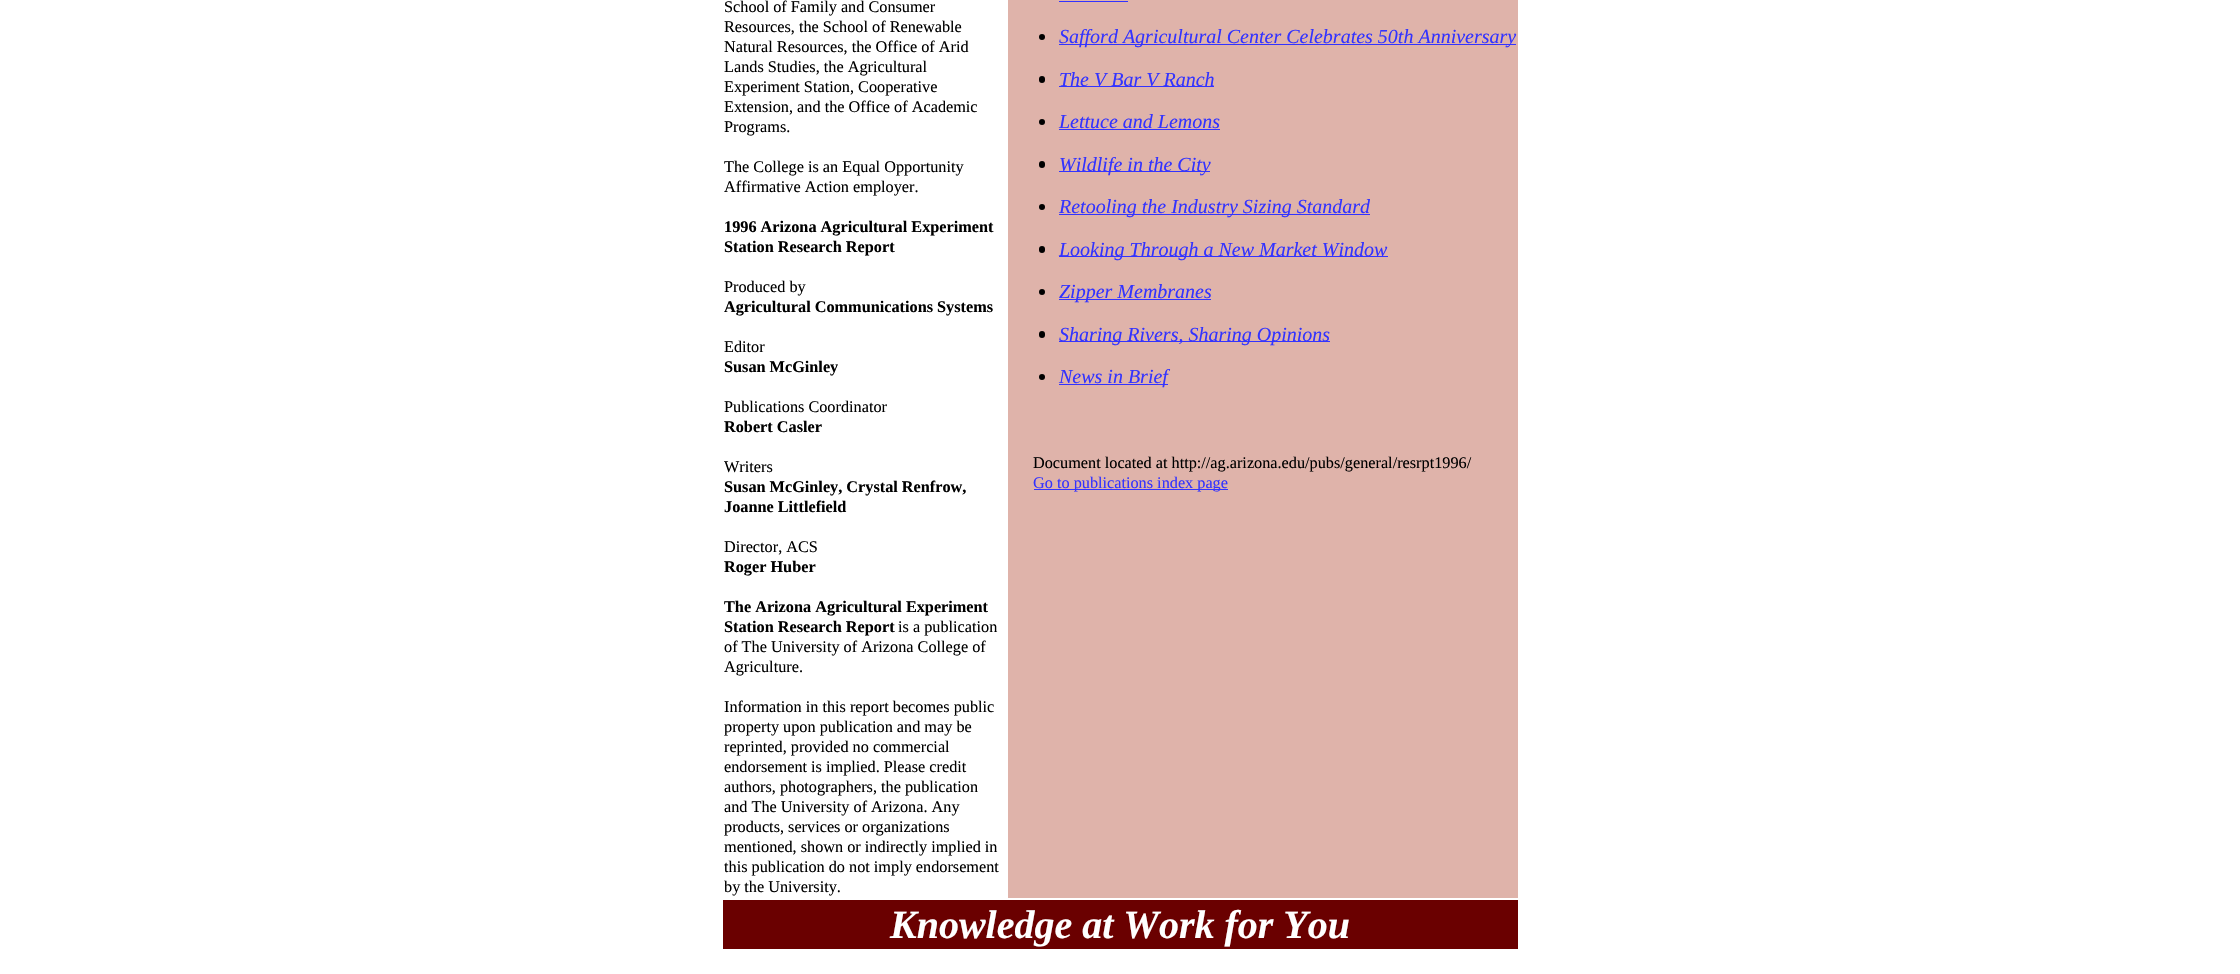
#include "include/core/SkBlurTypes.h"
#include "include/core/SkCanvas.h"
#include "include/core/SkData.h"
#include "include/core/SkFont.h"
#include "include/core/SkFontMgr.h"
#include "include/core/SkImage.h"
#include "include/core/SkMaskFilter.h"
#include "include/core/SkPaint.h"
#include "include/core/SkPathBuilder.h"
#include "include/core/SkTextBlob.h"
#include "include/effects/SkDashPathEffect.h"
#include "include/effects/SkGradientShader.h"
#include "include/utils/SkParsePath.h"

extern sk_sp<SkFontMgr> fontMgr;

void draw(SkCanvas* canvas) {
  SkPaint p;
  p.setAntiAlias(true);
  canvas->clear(SK_ColorWHITE);
  p.setColor(SkColorSetRGB(223, 179, 170));
  canvas->drawRect(SkRect::MakeLTRB(1008, 0, 1518, 898), p);
  p.setColor(SkColorSetRGB(51, 51, 255));
  canvas->drawRect(SkRect::MakeLTRB(1059, 1, 1128, 2), p);
  p.setColor(SK_ColorBLACK);
  canvas->drawCircle(1042, 37, 3, p);
  p.setColor(SkColorSetRGB(51, 51, 255));
  canvas->drawRect(SkRect::MakeLTRB(1059, 44, 1516, 45), p);
  p.setColor(SK_ColorBLACK);
  canvas->drawRoundRect(SkRect::MakeLTRB(1039, 76, 1045, 83), 3, 3, p);
  p.setColor(SkColorSetRGB(51, 51, 255));
  canvas->drawRect(SkRect::MakeLTRB(1059, 86, 1214, 87), p);
  p.setColor(SK_ColorBLACK);
  canvas->drawCircle(1042, 122, 3, p);
  p.setColor(SkColorSetRGB(51, 51, 255));
  canvas->drawRect(SkRect::MakeLTRB(1059, 129, 1220, 130), p);
  p.setColor(SK_ColorBLACK);
  canvas->drawRoundRect(SkRect::MakeLTRB(1039, 161, 1045, 168), 3, 3, p);
  p.setColor(SkColorSetRGB(51, 51, 255));
  canvas->drawRect(SkRect::MakeLTRB(1059, 171, 1210, 172), p);
  p.setColor(SK_ColorBLACK);
  canvas->drawCircle(1042, 207, 3, p);
  p.setColor(SkColorSetRGB(51, 51, 255));
  canvas->drawRect(SkRect::MakeLTRB(1059, 214, 1370, 215), p);
  p.setColor(SK_ColorBLACK);
  canvas->drawRoundRect(SkRect::MakeLTRB(1039, 246, 1045, 253), 3, 3, p);
  p.setColor(SkColorSetRGB(51, 51, 255));
  canvas->drawRect(SkRect::MakeLTRB(1059, 256, 1388, 257), p);
  p.setColor(SK_ColorBLACK);
  canvas->drawCircle(1042, 292, 3, p);
  p.setColor(SkColorSetRGB(51, 51, 255));
  canvas->drawRect(SkRect::MakeLTRB(1059, 299, 1211, 300), p);
  p.setColor(SK_ColorBLACK);
  canvas->drawRoundRect(SkRect::MakeLTRB(1039, 331, 1045, 338), 3, 3, p);
  p.setColor(SkColorSetRGB(51, 51, 255));
  canvas->drawRect(SkRect::MakeLTRB(1059, 341, 1330, 342), p);
  p.setColor(SK_ColorBLACK);
  canvas->drawCircle(1042, 377, 3, p);
  p.setColor(SkColorSetRGB(51, 51, 255));
  canvas->drawRect(SkRect::MakeLTRB(1059, 384, 1168, 385), p);
  canvas->drawRect(SkRect::MakeLTRB(1034, 489, 1228, 490), p);
  p.setColor(SkColorSetRGB(106, 0, 0));
  canvas->drawRect(SkRect::MakeLTRB(723, 900, 1518, 949), p);
  SkFont font1(fontMgr->matchFamilyStyle("Liberation Serif", SkFontStyle::Normal()), 16.25f);
  font1.setSubpixel(true);
  p.setColor(SK_ColorBLACK);
  canvas->drawString("School of Family and Consumer", 724, 12, font1, p);
  canvas->drawString("Resources, the School of Renewable", 724, 32, font1, p);
  canvas->drawString("Natural Resources, the Office of Arid", 724, 52, font1, p);
  canvas->drawString("Lands Studies, the Agricultural", 724, 72, font1, p);
  canvas->drawString("Experiment Station, Cooperative", 724, 92, font1, p);
  canvas->drawString("Extension, and the Office of Academic", 724, 112, font1, p);
  canvas->drawString("Programs.", 724, 132, font1, p);
  canvas->drawString("The College is an Equal Opportunity", 724, 172, font1, p);
  canvas->drawString("Affirmative Action employer.", 724, 192, font1, p);
  SkFont font2(fontMgr->matchFamilyStyle("Liberation Serif", SkFontStyle::Bold()), 16.25f);
  font2.setSubpixel(true);
  canvas->drawString("1996 Arizona Agricultural Experiment", 724, 232, font2, p);
  canvas->drawString("Station Research Report", 724, 252, font2, p);
  canvas->drawString("Produced by", 724, 292, font1, p);
  canvas->drawString("Agricultural Communications Systems", 724, 312, font2, p);
  canvas->drawString("Editor", 724, 352, font1, p);
  canvas->drawString("Susan McGinley", 724, 372, font2, p);
  canvas->drawString("Publications Coordinator", 724, 412, font1, p);
  canvas->drawString("Robert Casler", 724, 432, font2, p);
  canvas->drawString("Writers", 724, 472, font1, p);
  canvas->drawString("Susan McGinley, Crystal Renfrow,", 724, 492, font2, p);
  canvas->drawString("Joanne Littlefield", 724, 512, font2, p);
  canvas->drawString("Director, ACS", 724, 552, font1, p);
  canvas->drawString("Roger Huber", 724, 572, font2, p);
  canvas->drawString("The Arizona Agricultural Experiment", 724, 612, font2, p);
  canvas->drawString("Station Research Report", 724, 632, font2, p);
  canvas->drawString("is a publication", 898, 632, font1, p);
  canvas->drawString("of The University of Arizona College of", 724, 652, font1, p);
  canvas->drawString("Agriculture.", 724, 672, font1, p);
  canvas->drawString("Information in this report becomes public", 724, 712, font1, p);
  canvas->drawString("property upon publication and may be", 724, 732, font1, p);
  canvas->drawString("reprinted, provided no commercial", 724, 752, font1, p);
  canvas->drawString("endorsement is implied. Please credit", 724, 772, font1, p);
  canvas->drawString("authors, photographers, the publication", 724, 792, font1, p);
  canvas->drawString("and The University of Arizona. Any", 724, 812, font1, p);
  canvas->drawString("products, services or organizations", 724, 832, font1, p);
  canvas->drawString("mentioned, shown or indirectly implied in", 724, 852, font1, p);
  canvas->drawString("this publication do not imply endorsement", 724, 872, font1, p);
  canvas->drawString("by the University.", 724, 892, font1, p);
  SkFont font3(fontMgr->matchFamilyStyle("Liberation Serif", SkFontStyle::Italic()), 20);
  font3.setSubpixel(true);
  p.setColor(SkColorSetRGB(51, 51, 255));
  canvas->drawString("Safford Agricultural Center Celebrates 50th Anniversary", 1059, 43, font3, p);
  canvas->drawString("The V Bar V Ranch", 1059, 86, font3, p);
  canvas->drawString("Lettuce and Lemons", 1059, 128, font3, p);
  canvas->drawString("Wildlife in the City", 1059, 171, font3, p);
  canvas->drawString("Retooling the Industry Sizing Standard", 1059, 213, font3, p);
  canvas->drawString("Looking Through a New Market Window", 1059, 256, font3, p);
  canvas->drawString("Zipper Membranes", 1059, 298, font3, p);
  canvas->drawString("Sharing Rivers, Sharing Opinions", 1059, 341, font3, p);
  canvas->drawString("News in Brief", 1059, 383, font3, p);
  p.setColor(SK_ColorBLACK);
  canvas->drawString("Document located at http://ag.arizona.edu/pubs/general/resrpt1996/", 1033, 468, font1, p);
  p.setColor(SkColorSetRGB(51, 51, 255));
  canvas->drawString("Go to publications index page", 1033, 488, font1, p);
  SkFont font4(fontMgr->matchFamilyStyle("Liberation Serif", SkFontStyle::BoldItalic()), 40);
  font4.setSubpixel(true);
  p.setColor(SK_ColorWHITE);
  canvas->drawString("Knowledge at Work for You", 890, 938, font4, p);
}
